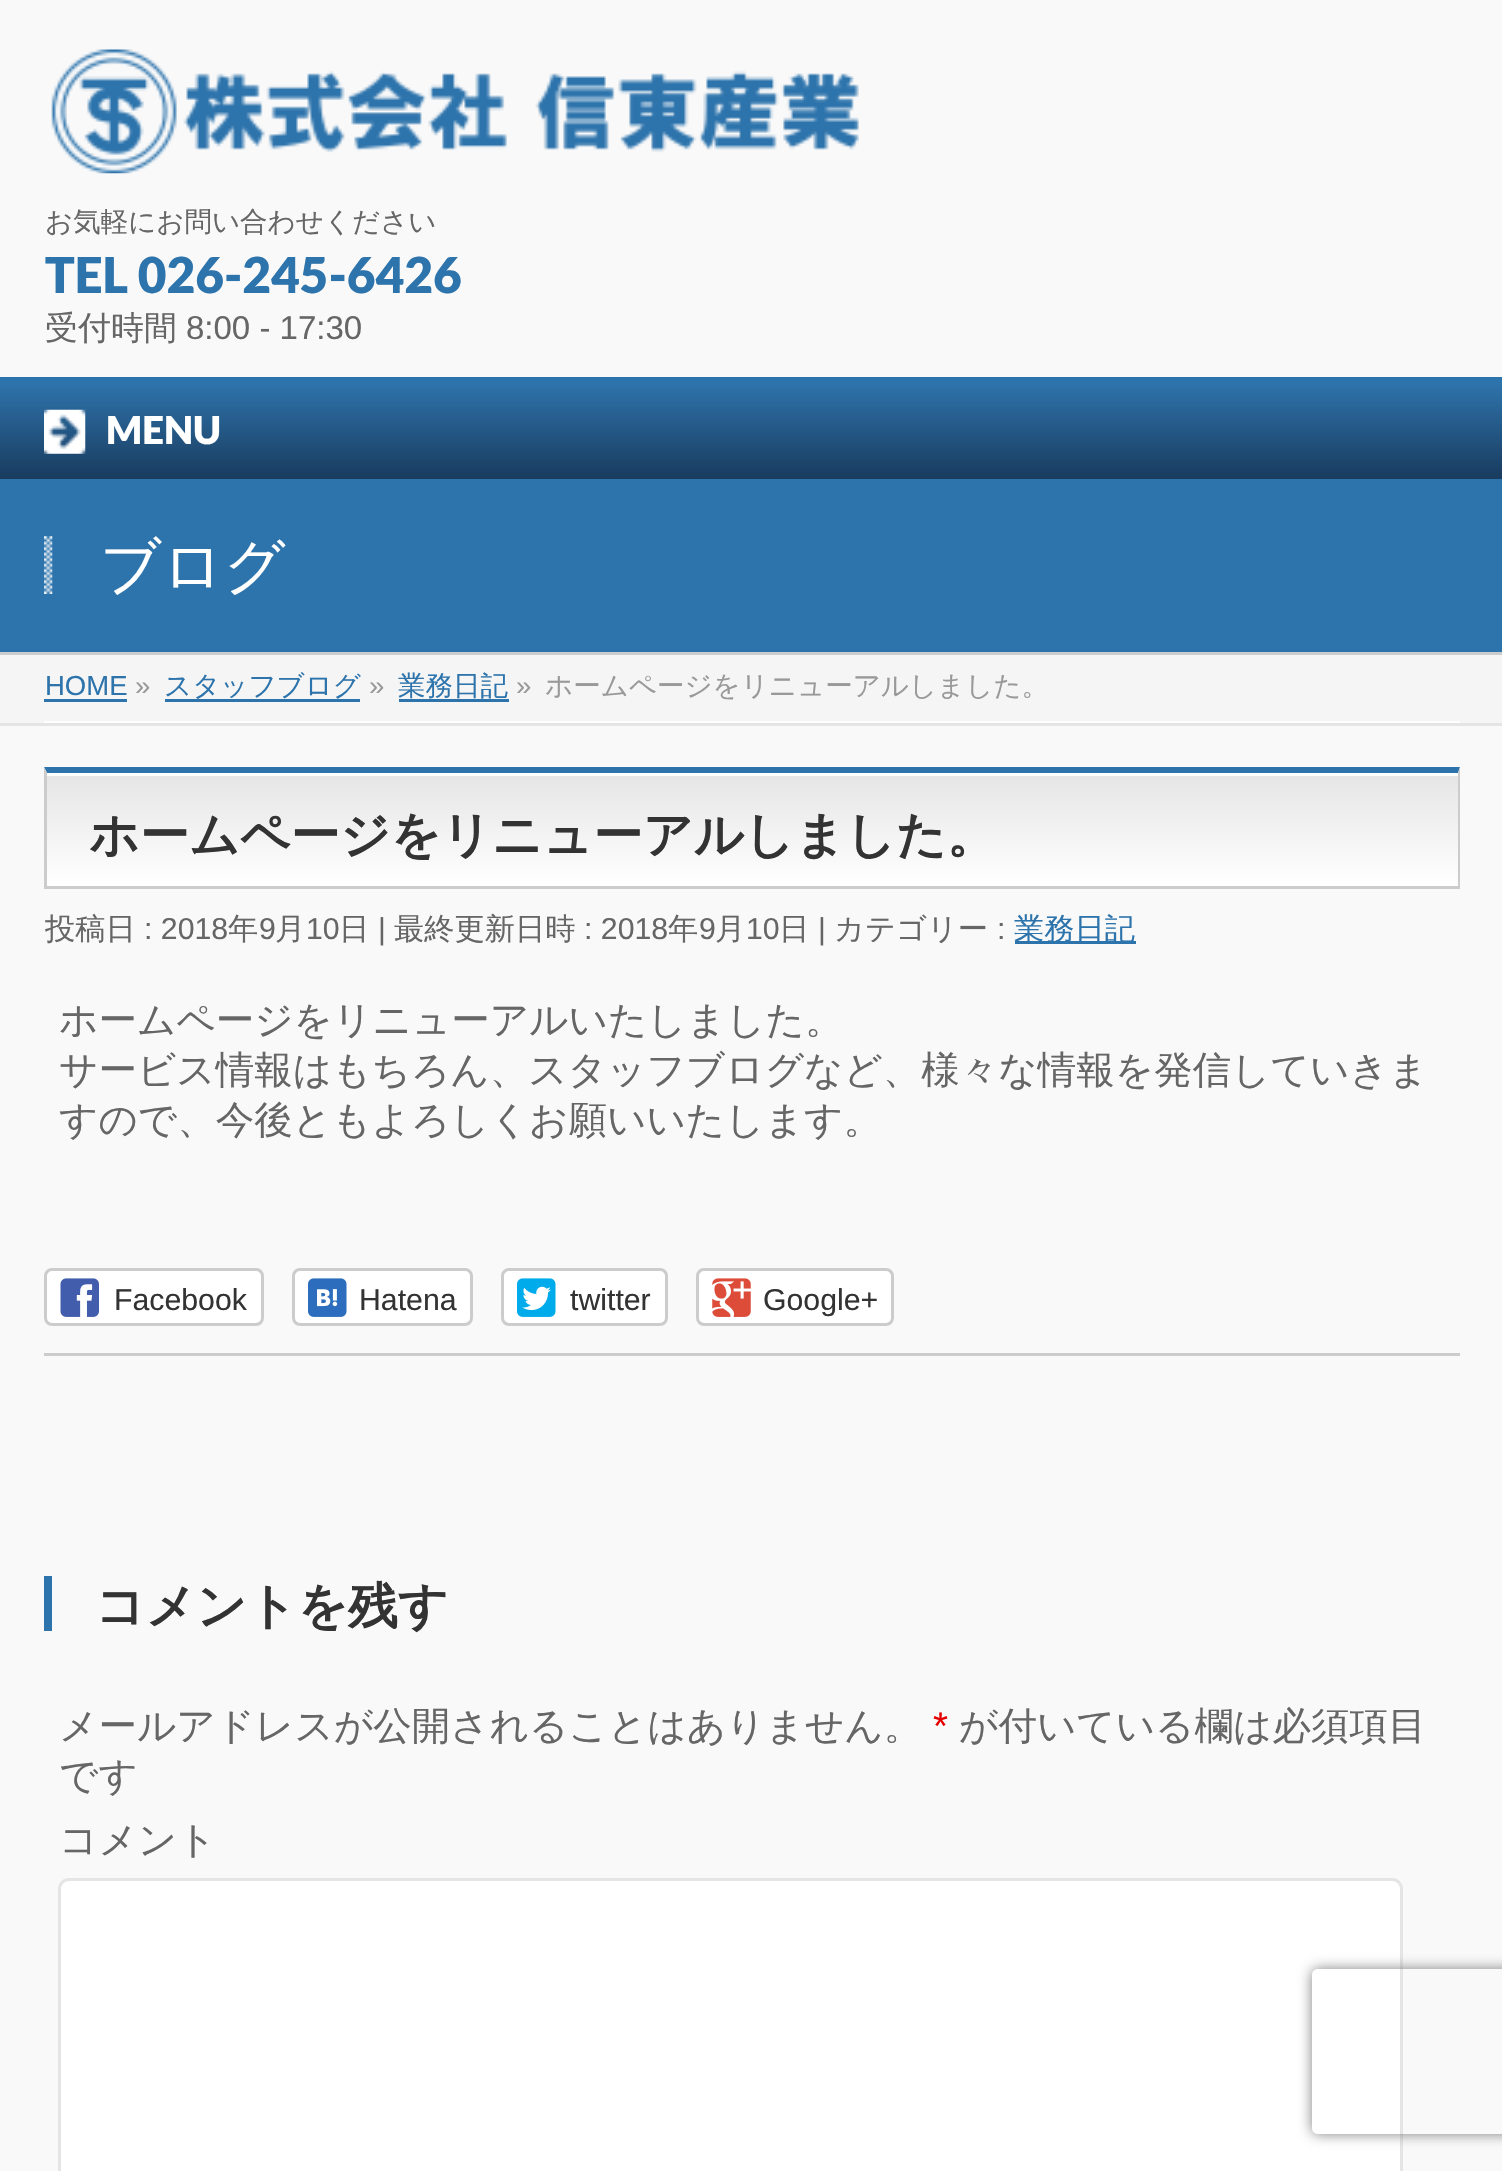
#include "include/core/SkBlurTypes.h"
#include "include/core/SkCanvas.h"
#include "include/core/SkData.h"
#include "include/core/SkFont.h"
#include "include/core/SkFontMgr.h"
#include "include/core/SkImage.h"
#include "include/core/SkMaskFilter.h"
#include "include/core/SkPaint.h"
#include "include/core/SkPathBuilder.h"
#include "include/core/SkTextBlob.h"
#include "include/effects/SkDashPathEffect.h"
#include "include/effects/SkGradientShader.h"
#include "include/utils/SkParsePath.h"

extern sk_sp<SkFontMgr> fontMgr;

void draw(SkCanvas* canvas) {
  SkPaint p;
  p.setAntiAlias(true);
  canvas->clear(SkColorSetRGB(249, 249, 249));
  canvas->drawImageRect(SkImages::DeferredFromEncodedData(SkData::MakeFromFileName("images/1.png")), SkRect::MakeLTRB(51, 49, 859, 174), SkSamplingOptions());
  p.setColor(SkColorSetRGB(46, 116, 172));
  canvas->drawRect(SkRect::MakeLTRB(0, 377, 1502, 382), p);
  {
    const SkColor colors[] = {SkColorSetRGB(46, 116, 172), SkColorSetRGB(25, 59, 94)};
    const float stops[] = {0, 1};
    const SkPoint ends[] = {{751, 382}, {751, 479}};
    p.setShader(SkGradientShader::MakeLinear(ends, colors, stops, 2, SkTileMode::kClamp));
    p.setAlpha(255);
  }
  canvas->drawRect(SkRect::MakeLTRB(0, 382, 1502, 479), p);
  canvas->drawImageRect(SkImages::DeferredFromEncodedData(SkData::MakeFromFileName("images/2.png")), SkRect::MakeLTRB(44, 409, 86, 454), SkSamplingOptions());
  p.setShader(nullptr);
  p.setColor(SkColorSetRGB(46, 116, 172));
  canvas->drawRect(SkRect::MakeLTRB(0, 479, 1502, 652), p);
  p.setColor(SkColorSetRGB(204, 204, 204));
  canvas->drawRect(SkRect::MakeLTRB(0, 652, 1502, 655), p);
  canvas->drawImageRect(SkImages::DeferredFromEncodedData(SkData::MakeFromFileName("images/3.png")), SkRect::MakeLTRB(44, 536, 53, 594), SkSamplingOptions());
  p.setColor(SkColorSetRGB(245, 245, 245));
  canvas->drawRect(SkRect::MakeLTRB(0, 655, 1502, 723), p);
  p.setColor(SkColorSetRGB(229, 229, 229));
  canvas->drawRect(SkRect::MakeLTRB(0, 723, 1502, 726), p);
  p.setColor(SK_ColorWHITE);
  canvas->drawRect(SkRect::MakeLTRB(44, 721, 1460, 723), p);
  p.setColor(SkColorSetRGB(46, 116, 172));
  canvas->drawRect(SkRect::MakeLTRB(44, 699, 127, 702), p);
  canvas->drawRect(SkRect::MakeLTRB(165, 699, 360, 702), p);
  canvas->drawRect(SkRect::MakeLTRB(399, 699, 509, 702), p);
  {
    const SkColor colors[] = {SkColorSetRGB(229, 229, 229), SK_ColorWHITE};
    const float stops[] = {0, 1};
    const SkPoint ends[] = {{47, 773}, {47, 886}};
    p.setShader(SkGradientShader::MakeLinear(ends, colors, stops, 2, SkTileMode::kClamp));
    p.setAlpha(255);
  }
  canvas->drawRect(SkRect::MakeLTRB(47, 776, 1458, 886), p);
  p.setShader(nullptr);
  p.setColor(SK_ColorWHITE);
  canvas->drawRect(SkRect::MakeLTRB(47, 773, 1458, 776), p);
  p.setColor(SkColorSetRGB(46, 116, 172));
  canvas->drawPath(SkPathBuilder().moveTo(44, 767).lineTo(1460, 767).lineTo(1458, 773).lineTo(47, 773).close().detach(), p);
  p.setColor(SkColorSetRGB(204, 204, 204));
  canvas->drawPath(SkPathBuilder().moveTo(1460, 767).lineTo(1460, 888).lineTo(1458, 886).lineTo(1458, 773).close().detach(), p);
  canvas->drawRect(SkRect::MakeLTRB(44, 886, 1460, 889), p);
  canvas->drawPath(SkPathBuilder().moveTo(44, 888).lineTo(44, 767).lineTo(47, 773).lineTo(47, 886).close().detach(), p);
  p.setColor(SkColorSetRGB(46, 116, 172));
  canvas->drawRect(SkRect::MakeLTRB(1015, 941, 1136, 944), p);
  p.setColor(SK_ColorWHITE);
  canvas->drawRoundRect(SkRect::MakeLTRB(45.5f, 1269.5f, 262.5f, 1324.5f), 6.5f, 6.5f, p);
  p.setStyle(SkPaint::kStroke_Style);
  p.setStrokeWidth(3);
  p.setColor(SkColorSetRGB(204, 204, 204));
  canvas->drawRoundRect(SkRect::MakeLTRB(45.5f, 1269.5f, 262.5f, 1324.5f), 6.5f, 6.5f, p);
  canvas->drawImageRect(SkImages::DeferredFromEncodedData(SkData::MakeFromFileName("images/4.png")), SkRect::MakeLTRB(60, 1278, 99, 1317), SkSamplingOptions());
  p.setStyle(SkPaint::kFill_Style);
  p.setColor(SK_ColorWHITE);
  canvas->drawRoundRect(SkRect::MakeLTRB(293.5f, 1269.5f, 471.5f, 1324.5f), 6.5f, 6.5f, p);
  p.setStyle(SkPaint::kStroke_Style);
  p.setColor(SkColorSetRGB(204, 204, 204));
  canvas->drawRoundRect(SkRect::MakeLTRB(293.5f, 1269.5f, 471.5f, 1324.5f), 6.5f, 6.5f, p);
  canvas->drawImageRect(SkImages::DeferredFromEncodedData(SkData::MakeFromFileName("images/5.png")), SkRect::MakeLTRB(308, 1278, 347, 1317), SkSamplingOptions());
  p.setStyle(SkPaint::kFill_Style);
  p.setColor(SK_ColorWHITE);
  canvas->drawRoundRect(SkRect::MakeLTRB(502.5f, 1269.5f, 666.5f, 1324.5f), 6.5f, 6.5f, p);
  p.setStyle(SkPaint::kStroke_Style);
  p.setColor(SkColorSetRGB(204, 204, 204));
  canvas->drawRoundRect(SkRect::MakeLTRB(502.5f, 1269.5f, 666.5f, 1324.5f), 6.5f, 6.5f, p);
  canvas->drawImageRect(SkImages::DeferredFromEncodedData(SkData::MakeFromFileName("images/6.png")), SkRect::MakeLTRB(517, 1278, 556, 1317), SkSamplingOptions());
  p.setStyle(SkPaint::kFill_Style);
  p.setColor(SK_ColorWHITE);
  canvas->drawRoundRect(SkRect::MakeLTRB(697.5f, 1269.5f, 892.5f, 1324.5f), 6.5f, 6.5f, p);
  p.setStyle(SkPaint::kStroke_Style);
  p.setColor(SkColorSetRGB(204, 204, 204));
  canvas->drawRoundRect(SkRect::MakeLTRB(697.5f, 1269.5f, 892.5f, 1324.5f), 6.5f, 6.5f, p);
  canvas->drawImageRect(SkImages::DeferredFromEncodedData(SkData::MakeFromFileName("images/7.png")), SkRect::MakeLTRB(712, 1278, 751, 1317), SkSamplingOptions());
  p.setStyle(SkPaint::kFill_Style);
  canvas->drawRect(SkRect::MakeLTRB(44, 1353, 1460, 1356), p);
  p.setColor(SkColorSetRGB(46, 116, 172));
  canvas->drawRect(SkRect::MakeLTRB(44, 1576, 52, 1631), p);
  p.setColor(SK_ColorWHITE);
  canvas->drawRoundRect(SkRect::MakeLTRB(59.5f, 1879.5f, 1401.5f, 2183.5f), 9.5f, 9.5f, p);
  p.setStyle(SkPaint::kStroke_Style);
  p.setColor(SkColorSetRGB(229, 229, 229));
  canvas->drawRoundRect(SkRect::MakeLTRB(59.5f, 1879.5f, 1401.5f, 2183.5f), 9.5f, 9.5f, p);
  canvas->save();
  canvas->clipPath(SkPathBuilder(SkPathFillType::kEvenOdd).moveTo(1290, 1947).lineTo(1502, 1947).lineTo(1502, 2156).lineTo(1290, 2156).close().moveTo(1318, 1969).lineTo(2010, 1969).cubicTo(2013.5f, 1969, 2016, 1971.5f, 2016, 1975).lineTo(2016, 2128).cubicTo(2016, 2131.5f, 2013.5f, 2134, 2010, 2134).lineTo(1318, 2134).cubicTo(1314.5f, 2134, 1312, 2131.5f, 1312, 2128).lineTo(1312, 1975).cubicTo(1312, 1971.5f, 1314.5f, 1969, 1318, 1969).close().detach(), true);
  p.setStyle(SkPaint::kFill_Style);
  p.setColor(SkColorSetRGB(128, 128, 128));
  p.setMaskFilter(SkMaskFilter::MakeBlur(kNormal_SkBlurStyle, 7));
  canvas->drawRoundRect(SkRect::MakeLTRB(1312, 1969, 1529, 2134), 6, 6, p);
  p.setMaskFilter(nullptr);
  canvas->restore();
  SkFont font1(fontMgr->matchFamilyStyle("WenQuanYi Zen Hei", SkFontStyle(500, SkFontStyle::kNormal_Width, SkFontStyle::kUpright_Slant)), 27.5f);
  font1.setSubpixel(true);
  p.setColor(SkColorSetRGB(102, 102, 102));
  canvas->drawString("お気軽にお問い合わせください", 45, 231, font1, p);
  SkFont font2(fontMgr->matchFamilyStyle("Lato", SkFontStyle(900, SkFontStyle::kNormal_Width, SkFontStyle::kUpright_Slant)), 49.5f);
  font2.setSubpixel(true);
  p.setColor(SkColorSetRGB(46, 116, 172));
  canvas->drawString("TEL 026-245-6426", 45, 293, font2, p);
  SkFont font3(fontMgr->matchFamilyStyle("WenQuanYi Zen Hei", SkFontStyle(500, SkFontStyle::kNormal_Width, SkFontStyle::kUpright_Slant)), 33);
  font3.setSubpixel(true);
  p.setColor(SkColorSetRGB(102, 102, 102));
  canvas->drawString("受付時間", 45, 339, font3, p);
  SkFont font4(fontMgr->matchFamilyStyle("Liberation Sans", SkFontStyle::Normal()), 33);
  font4.setSubpixel(true);
  canvas->drawString("8:00 - 17:30", 186, 339, font4, p);
  SkFont font5(fontMgr->matchFamilyStyle("Lato", SkFontStyle(900, SkFontStyle::kNormal_Width, SkFontStyle::kUpright_Slant)), 38.5f);
  font5.setSubpixel(true);
  p.setColor(SK_ColorWHITE);
  canvas->drawString("MENU", 106, 444, font5, p);
  SkFont font6(fontMgr->matchFamilyStyle("WenQuanYi Zen Hei", SkFontStyle(500, SkFontStyle::kNormal_Width, SkFontStyle::kUpright_Slant)), 60.5f);
  font6.setSubpixel(true);
  canvas->drawString("ブログ", 100, 587, font6, p);
  SkFont font7(fontMgr->matchFamilyStyle("Liberation Sans", SkFontStyle::Normal()), 27.5f);
  font7.setSubpixel(true);
  p.setColor(SkColorSetRGB(46, 116, 172));
  canvas->drawString("HOME", 45, 695, font7, p);
  p.setColor(SkColorSetRGB(153, 153, 153));
  canvas->drawString("»", 135, 695, font7, p);
  p.setColor(SkColorSetRGB(46, 116, 172));
  canvas->drawString("スタッフブログ", 164, 695, font1, p);
  p.setColor(SkColorSetRGB(153, 153, 153));
  canvas->drawString("»", 369, 695, font7, p);
  p.setColor(SkColorSetRGB(46, 116, 172));
  canvas->drawString("業務日記", 398, 695, font1, p);
  p.setColor(SkColorSetRGB(153, 153, 153));
  canvas->drawString("»", 516, 695, font7, p);
  canvas->drawString("ホームページをリニューアルしました。", 545, 695, font1, p);
  SkFont font8(fontMgr->matchFamilyStyle("WenQuanYi Zen Hei", SkFontStyle::Bold()), 49.5f);
  font8.setSubpixel(true);
  p.setColor(SkColorSetRGB(51, 51, 51));
  canvas->drawString("ホームページをリニューアルしました。", 89, 852, font8, p);
  SkFont font9(fontMgr->matchFamilyStyle("WenQuanYi Zen Hei", SkFontStyle(500, SkFontStyle::kNormal_Width, SkFontStyle::kUpright_Slant)), 30.25f);
  font9.setSubpixel(true);
  p.setColor(SkColorSetRGB(102, 102, 102));
  canvas->drawString("投稿日", 45, 939, font9, p);
  SkFont font10(fontMgr->matchFamilyStyle("Liberation Sans", SkFontStyle::Normal()), 30.25f);
  font10.setSubpixel(true);
  canvas->drawString(": 2018", 144, 939, font10, p);
  canvas->drawString("年", 228, 939, font9, p);
  canvas->drawString("9", 259, 939, font10, p);
  canvas->drawString("月", 275, 939, font9, p);
  canvas->drawString("10", 306, 939, font10, p);
  canvas->drawString("日", 339, 939, font9, p);
  canvas->drawString("|", 378, 939, font10, p);
  canvas->drawString("最終更新日時", 394, 939, font9, p);
  canvas->drawString(": 2018", 584, 939, font10, p);
  canvas->drawString("年", 668, 939, font9, p);
  canvas->drawString("9", 699, 939, font10, p);
  canvas->drawString("月", 715, 939, font9, p);
  canvas->drawString("10", 746, 939, font10, p);
  canvas->drawString("日", 779, 939, font9, p);
  canvas->drawString("|", 818, 939, font10, p);
  canvas->drawString("カテゴリー", 834, 939, font9, p);
  canvas->drawString(":", 997, 939, font10, p);
  p.setColor(SkColorSetRGB(46, 116, 172));
  canvas->drawString("業務日記", 1014, 939, font9, p);
  SkFont font11(fontMgr->matchFamilyStyle("WenQuanYi Zen Hei", SkFontStyle(500, SkFontStyle::kNormal_Width, SkFontStyle::kUpright_Slant)), 38.5f);
  font11.setSubpixel(true);
  p.setColor(SkColorSetRGB(102, 102, 102));
  canvas->drawString("ホームページをリニューアルいたしました。", 59, 1033, font11, p);
  canvas->drawString("サービス情報はもちろん、スタッフブログなど、様々な情報を発信していきま", 59, 1083, font11, p);
  canvas->drawString("すので、今後ともよろしくお願いいたします。", 59, 1133, font11, p);
  p.setColor(SkColorSetRGB(51, 51, 51));
  canvas->drawString("Facebook", 114, 1310, font10, p);
  canvas->drawString("Hatena", 359, 1310, font10, p);
  canvas->drawString("twitter", 570, 1310, font10, p);
  canvas->drawString("Google+", 763, 1310, font10, p);
  canvas->drawString("コメントを残す", 95, 1623, font8, p);
  p.setColor(SkColorSetRGB(102, 102, 102));
  canvas->drawString("メールアドレスが公開されることはありません。", 59, 1739, font11, p);
  SkFont font12(fontMgr->matchFamilyStyle("Liberation Sans", SkFontStyle::Normal()), 38.5f);
  font12.setSubpixel(true);
  p.setColor(SkColorSetRGB(229, 0, 0));
  canvas->drawString("*", 933, 1739, font12, p);
  p.setColor(SkColorSetRGB(102, 102, 102));
  canvas->drawString("が付いている欄は必須項目", 959, 1739, font11, p);
  canvas->drawString("です", 59, 1789, font11, p);
  canvas->drawString("コメント", 59, 1853, font11, p);
}
